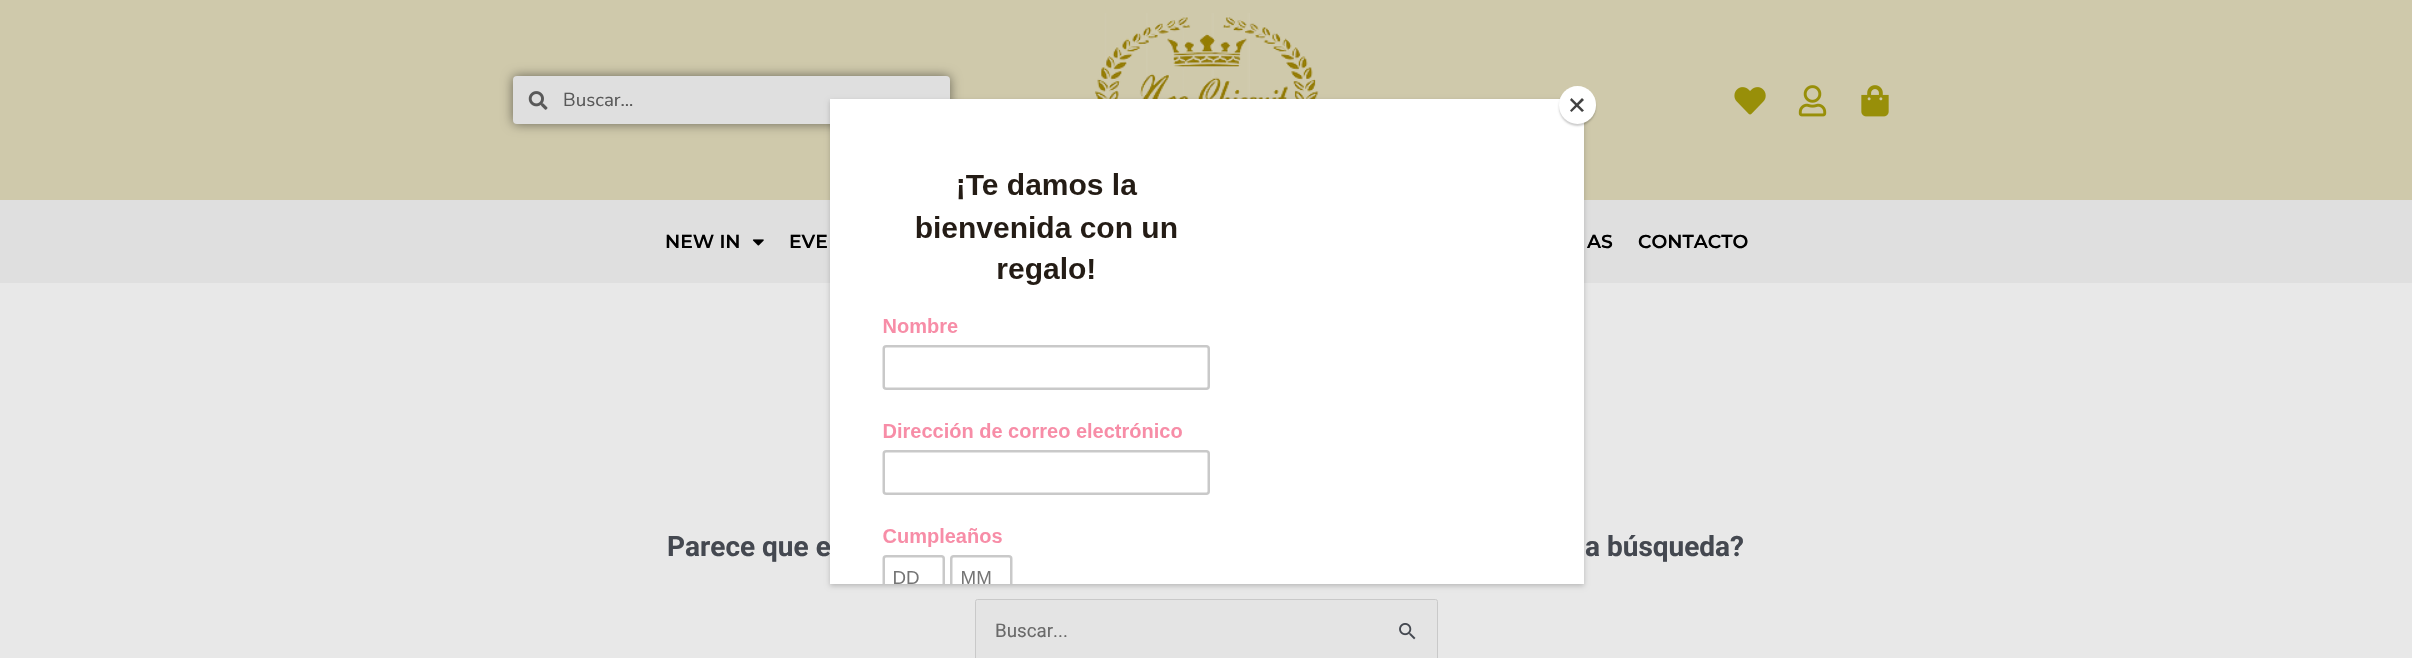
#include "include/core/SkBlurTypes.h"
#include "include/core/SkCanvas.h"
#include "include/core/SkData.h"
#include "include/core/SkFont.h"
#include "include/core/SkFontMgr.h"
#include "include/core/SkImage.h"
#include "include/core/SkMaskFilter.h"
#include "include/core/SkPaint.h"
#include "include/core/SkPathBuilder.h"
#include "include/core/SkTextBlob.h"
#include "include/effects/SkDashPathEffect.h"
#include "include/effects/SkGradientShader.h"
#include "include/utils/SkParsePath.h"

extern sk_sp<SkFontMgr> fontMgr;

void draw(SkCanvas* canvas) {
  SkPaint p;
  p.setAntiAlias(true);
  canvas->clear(SkColorSetRGB(232, 232, 232));
  p.setColor(SkColorSetRGB(207, 201, 171));
  canvas->drawRect(SkRect::MakeLTRB(0, 0, 2412, 200), p);
  p.setColor(SkColorSetARGB(128, 0, 0, 0));
  p.setMaskFilter(SkMaskFilter::MakeBlur(kNormal_SkBlurStyle, 6));
  canvas->drawRoundRect(SkRect::MakeLTRB(513, 76, 950, 124), 4, 4, p);
  p.setMaskFilter(nullptr);
  p.setColor(SkColorSetRGB(223, 223, 223));
  canvas->drawRoundRect(SkRect::MakeLTRB(513, 76, 950, 124), 4, 4, p);
  canvas->drawImageRect(SkImages::DeferredFromEncodedData(SkData::MakeFromFileName("images/3.png")), SkRect::MakeLTRB(1094, 13, 1319, 99), SkSamplingOptions());
  canvas->drawRect(SkRect::MakeLTRB(0, 200, 2412, 283), p);
  p.setColor(SkColorSetARGB(51, 0, 0, 0));
  p.setMaskFilter(SkMaskFilter::MakeBlur(kNormal_SkBlurStyle, 2.5f));
  canvas->drawRect(SkRect::MakeLTRB(830, 101, 1584, 586), p);
  p.setMaskFilter(nullptr);
  canvas->drawImageRect(SkImages::DeferredFromEncodedData(SkData::MakeFromFileName("images/2.png")), SkRect::MakeLTRB(528, 91, 548, 110), SkSamplingOptions());
  canvas->drawImageRect(SkImages::DeferredFromEncodedData(SkData::MakeFromFileName("images/4.png")), SkRect::MakeLTRB(1734, 87, 1766, 115), SkSamplingOptions());
  canvas->drawImageRect(SkImages::DeferredFromEncodedData(SkData::MakeFromFileName("images/5.png")), SkRect::MakeLTRB(1798, 85, 1827, 117), SkSamplingOptions());
  canvas->drawImageRect(SkImages::DeferredFromEncodedData(SkData::MakeFromFileName("images/6.png")), SkRect::MakeLTRB(1861, 85, 1889, 117), SkSamplingOptions());
  canvas->drawImageRect(SkImages::DeferredFromEncodedData(SkData::MakeFromFileName("images/7.png")), SkRect::MakeLTRB(752, 239, 764, 246), SkSamplingOptions());
  p.setColor(SkColorSetRGB(228, 228, 228));
  canvas->drawRoundRect(SkRect::MakeLTRB(975.5f, 599.5f, 1437.5f, 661.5f), 2, 2, p);
  p.setStyle(SkPaint::kStroke_Style);
  p.setStrokeWidth(1);
  p.setColor(SkColorSetRGB(201, 201, 201));
  canvas->drawRoundRect(SkRect::MakeLTRB(975.5f, 599.5f, 1437.5f, 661.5f), 2, 2, p);
  canvas->drawImageRect(SkImages::DeferredFromEncodedData(SkData::MakeFromFileName("images/8.png")), SkRect::MakeLTRB(1399, 623, 1416, 640), SkSamplingOptions());
  SkFont font1(fontMgr->matchFamilyStyle("Nunito Sans", SkFontStyle::Normal()), 18.75f);
  font1.setSubpixel(true);
  p.setStyle(SkPaint::kFill_Style);
  p.setColor(SkColorSetRGB(89, 89, 89));
  canvas->drawString("Buscar...", 563, 106, font1, p);
  SkFont font2(fontMgr->matchFamilyStyle("Montserrat", SkFontStyle(600, SkFontStyle::kNormal_Width, SkFontStyle::kUpright_Slant)), 18.75f);
  font2.setSubpixel(true);
  p.setColor(SK_ColorBLACK);
  canvas->drawString("NEW IN", 665, 248, font2, p);
  canvas->drawString("EVE", 789, 248, font2, p);
  canvas->drawString("AS", 1587, 248, font2, p);
  canvas->drawString("CONTACTO", 1638, 248, font2, p);
  SkFont font3(fontMgr->matchFamilyStyle("Roboto", SkFontStyle::Bold()), 28);
  font3.setSubpixel(true);
  p.setColor(SkColorSetRGB(68, 72, 80));
  canvas->drawString("Parece que e", 667, 556, font3, p);
  canvas->drawImageRect(SkImages::DeferredFromEncodedData(SkData::MakeFromFileName("images/1.png")), SkRect::MakeLTRB(830, 99, 1584, 584), SkSamplingOptions());
  p.setColor(SkColorSetARGB(51, 0, 0, 0));
  p.setMaskFilter(SkMaskFilter::MakeBlur(kNormal_SkBlurStyle, 1));
  canvas->drawRoundRect(SkRect::MakeLTRB(1559, 89, 1596, 126), 18.5f, 18.5f, p);
  p.setMaskFilter(nullptr);
  p.setColor(SK_ColorWHITE);
  canvas->drawRoundRect(SkRect::MakeLTRB(1559, 86, 1596, 124), 18.5f, 18.5f, p);
  p.setColor(SkColorSetRGB(65, 65, 65));
  canvas->drawPath(SkPathBuilder().moveTo(1582, 98).lineTo(1584, 100).lineTo(1571.5f, 112).lineTo(1570, 110.5f).close().detach(), p);
  canvas->drawPath(SkPathBuilder().moveTo(1570, 100).lineTo(1571.5f, 98).lineTo(1584, 110.5f).lineTo(1582, 112).close().detach(), p);
  p.setColor(SkColorSetRGB(68, 72, 80));
  canvas->drawString("a búsqueda?", 1585, 556, font3, p);
  SkFont font4(fontMgr->matchFamilyStyle("Roboto", SkFontStyle::Normal()), 18.75f);
  font4.setSubpixel(true);
  p.setColor(SkColorSetRGB(106, 106, 106));
  canvas->drawString("Buscar...", 995, 637, font4, p);
}
